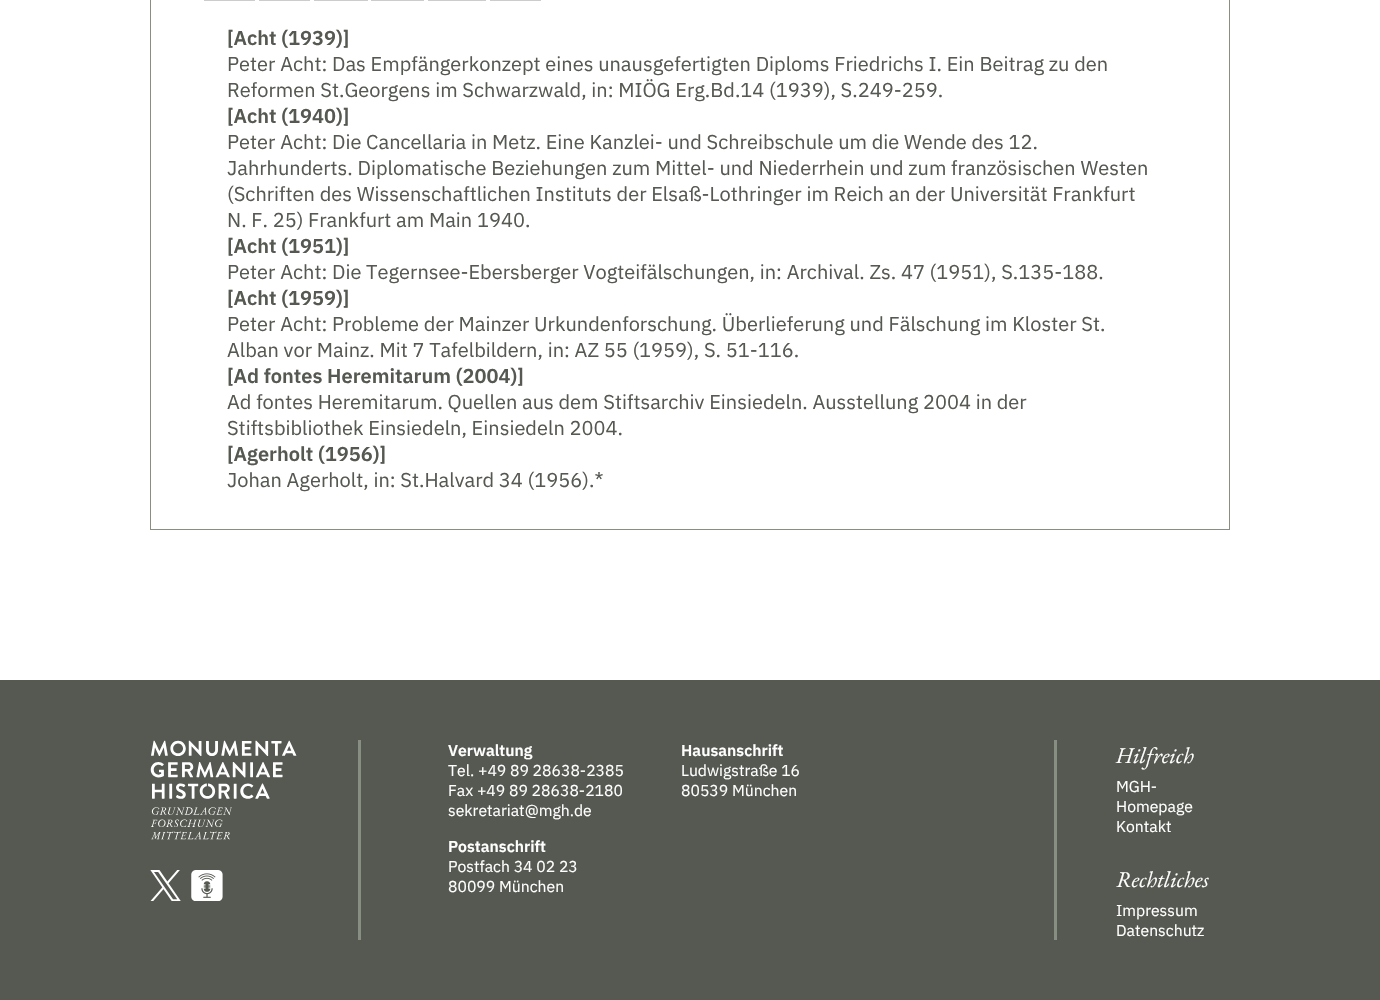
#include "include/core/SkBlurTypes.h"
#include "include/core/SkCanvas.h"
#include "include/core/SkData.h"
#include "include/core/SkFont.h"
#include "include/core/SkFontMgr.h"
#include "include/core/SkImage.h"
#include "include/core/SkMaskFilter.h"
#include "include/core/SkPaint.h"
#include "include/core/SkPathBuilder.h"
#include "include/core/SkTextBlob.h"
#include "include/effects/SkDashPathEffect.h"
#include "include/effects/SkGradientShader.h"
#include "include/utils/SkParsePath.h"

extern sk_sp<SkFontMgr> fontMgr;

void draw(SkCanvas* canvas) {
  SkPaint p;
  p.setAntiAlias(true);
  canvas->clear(SK_ColorWHITE);
  p.setColor(SkColorSetRGB(136, 142, 130));
  canvas->drawRect(SkRect::MakeLTRB(1229, 0, 1230, 530), p);
  canvas->drawRect(SkRect::MakeLTRB(150, 529, 1230, 530), p);
  canvas->drawRect(SkRect::MakeLTRB(150, 0, 151, 530), p);
  p.setColor(SkColorSetRGB(204, 204, 204));
  canvas->drawRect(SkRect::MakeLTRB(204, 0, 255, 1), p);
  canvas->drawRect(SkRect::MakeLTRB(259, 0, 310, 1), p);
  canvas->drawRect(SkRect::MakeLTRB(314, 0, 368, 1), p);
  canvas->drawRect(SkRect::MakeLTRB(371, 0, 424, 1), p);
  canvas->drawRect(SkRect::MakeLTRB(428, 0, 486, 1), p);
  canvas->drawRect(SkRect::MakeLTRB(490, 0, 541, 1), p);
  p.setColor(SkColorSetRGB(85, 89, 81));
  canvas->drawRect(SkRect::MakeLTRB(0, 680, 1380, 1000), p);
  p.setColor(SkColorSetRGB(136, 142, 130));
  canvas->drawRect(SkRect::MakeLTRB(358, 740, 361, 940), p);
  canvas->drawImageRect(SkImages::DeferredFromEncodedData(SkData::MakeFromFileName("images/1.png")), SkRect::MakeLTRB(150, 740, 297, 840), SkSamplingOptions());
  canvas->drawImageRect(SkImages::DeferredFromEncodedData(SkData::MakeFromFileName("images/2.png")), SkRect::MakeLTRB(150, 870, 181, 901), SkSamplingOptions());
  canvas->drawImageRect(SkImages::DeferredFromEncodedData(SkData::MakeFromFileName("images/3.png")), SkRect::MakeLTRB(191, 870, 223, 901), SkSamplingOptions());
  canvas->drawRect(SkRect::MakeLTRB(1054, 740, 1057, 940), p);
  SkFont font1(fontMgr->matchFamilyStyle("IBM Plex Sans", SkFontStyle(600, SkFontStyle::kNormal_Width, SkFontStyle::kUpright_Slant)), 20);
  font1.setSubpixel(true);
  p.setColor(SkColorSetRGB(85, 89, 81));
  canvas->drawString("[Acht (1939)]", 227, 45, font1, p);
  SkFont font2(fontMgr->matchFamilyStyle("IBM Plex Sans", SkFontStyle::Normal()), 20);
  font2.setSubpixel(true);
  canvas->drawString("Peter Acht: Das Empfängerkonzept eines unausgefertigten Diploms Friedrichs I. Ein Beitrag zu den", 227, 71, font2, p);
  canvas->drawString("Reformen St.Georgens im Schwarzwald, in: MIÖG Erg.Bd.14 (1939), S.249-259.", 227, 97, font2, p);
  canvas->drawString("[Acht (1940)]", 227, 123, font1, p);
  canvas->drawString("Peter Acht: Die Cancellaria in Metz. Eine Kanzlei- und Schreibschule um die Wende des 12.", 227, 149, font2, p);
  canvas->drawString("Jahrhunderts. Diplomatische Beziehungen zum Mittel- und Niederrhein und zum französischen Westen", 227, 175, font2, p);
  canvas->drawString("(Schriften des Wissenschaftlichen Instituts der Elsaß-Lothringer im Reich an der Universität Frankfurt", 227, 201, font2, p);
  canvas->drawString("N. F. 25) Frankfurt am Main 1940.", 227, 227, font2, p);
  canvas->drawString("[Acht (1951)]", 227, 253, font1, p);
  canvas->drawString("Peter Acht: Die Tegernsee-Ebersberger Vogteifälschungen, in: Archival. Zs. 47 (1951), S.135-188.", 227, 279, font2, p);
  canvas->drawString("[Acht (1959)]", 227, 305, font1, p);
  canvas->drawString("Peter Acht: Probleme der Mainzer Urkundenforschung. Überlieferung und Fälschung im Kloster St.", 227, 331, font2, p);
  canvas->drawString("Alban vor Mainz. Mit 7 Tafelbildern, in: AZ 55 (1959), S. 51-116.", 227, 357, font2, p);
  canvas->drawString("[Ad fontes Heremitarum (2004)]", 227, 383, font1, p);
  canvas->drawString("Ad fontes Heremitarum. Quellen aus dem Stiftsarchiv Einsiedeln. Ausstellung 2004 in der", 227, 409, font2, p);
  canvas->drawString("Stiftsbibliothek Einsiedeln, Einsiedeln 2004.", 227, 435, font2, p);
  canvas->drawString("[Agerholt (1956)]", 227, 461, font1, p);
  canvas->drawString("Johan Agerholt, in: St.Halvard 34 (1956).*", 227, 487, font2, p);
  SkFont font3(fontMgr->matchFamilyStyle("IBM Plex Sans", SkFontStyle(600, SkFontStyle::kNormal_Width, SkFontStyle::kUpright_Slant)), 15.75f);
  font3.setSubpixel(true);
  p.setColor(SK_ColorWHITE);
  canvas->drawString("Verwaltung", 448, 756, font3, p);
  SkFont font4(fontMgr->matchFamilyStyle("IBM Plex Sans", SkFontStyle::Normal()), 15.75f);
  font4.setSubpixel(true);
  canvas->drawString("Tel. +49 89 28638-2385", 448, 776, font4, p);
  canvas->drawString("Fax +49 89 28638-2180", 448, 796, font4, p);
  canvas->drawString("sekretariat@mgh.de", 448, 816, font4, p);
  canvas->drawString("Hausanschrift", 681, 756, font3, p);
  canvas->drawString("Ludwigstraße 16", 681, 776, font4, p);
  canvas->drawString("80539 München", 681, 796, font4, p);
  canvas->drawString("Postanschrift", 448, 852, font3, p);
  canvas->drawString("Postfach 34 02 23", 448, 872, font4, p);
  canvas->drawString("80099 München", 448, 892, font4, p);
  SkFont font5(fontMgr->matchFamilyStyle("EB Garamond", SkFontStyle::Italic()), 22.5f);
  font5.setSubpixel(true);
  canvas->drawString("Hilfreich", 1116, 763, font5, p);
  canvas->drawString("MGH-", 1116, 792, font4, p);
  canvas->drawString("Homepage", 1116, 812, font4, p);
  canvas->drawString("Kontakt", 1116, 832, font4, p);
  canvas->drawString("Rechtliches", 1116, 887, font5, p);
  canvas->drawString("Impressum", 1116, 916, font4, p);
  canvas->drawString("Datenschutz", 1116, 936, font4, p);
}
